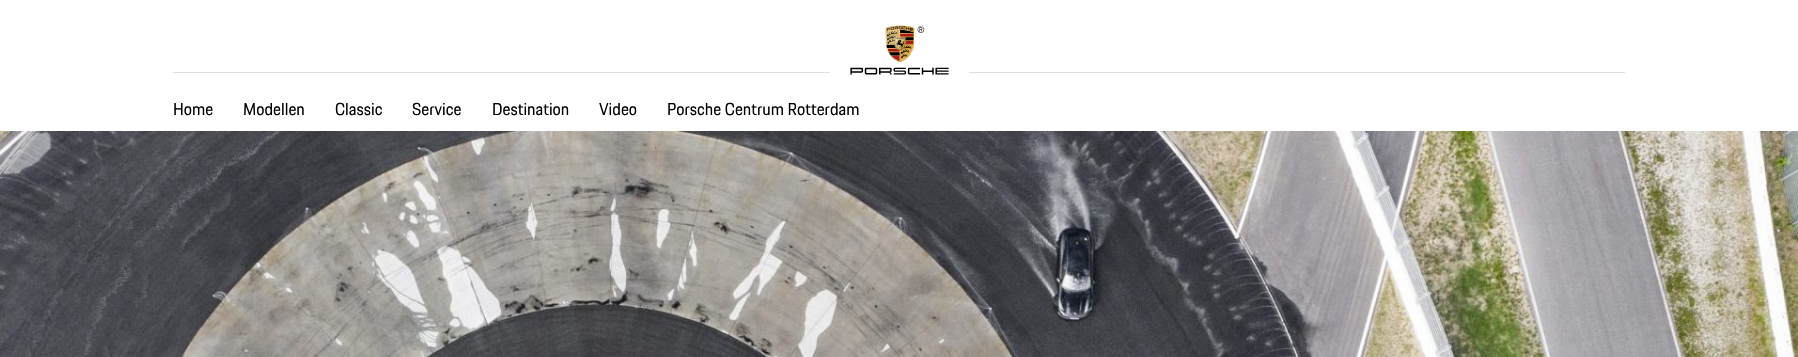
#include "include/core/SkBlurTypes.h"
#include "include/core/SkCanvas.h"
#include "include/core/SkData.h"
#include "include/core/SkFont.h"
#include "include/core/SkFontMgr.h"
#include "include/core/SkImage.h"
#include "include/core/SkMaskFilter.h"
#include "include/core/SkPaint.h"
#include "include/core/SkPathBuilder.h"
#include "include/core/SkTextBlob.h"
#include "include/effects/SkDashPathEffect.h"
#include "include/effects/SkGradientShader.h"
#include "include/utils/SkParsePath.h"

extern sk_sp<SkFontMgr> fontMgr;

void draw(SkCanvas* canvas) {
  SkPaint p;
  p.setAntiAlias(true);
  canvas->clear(SK_ColorWHITE);
  p.setColor(SkColorSetRGB(223, 223, 223));
  canvas->drawRect(SkRect::MakeLTRB(173, 72, 1625, 73), p);
  p.setColor(SK_ColorWHITE);
  canvas->drawRect(SkRect::MakeLTRB(830, 72, 969, 73), p);
  canvas->drawImageRect(SkImages::DeferredFromEncodedData(SkData::MakeFromFileName("images/1.png")), SkRect::MakeLTRB(850, 25, 949, 75), SkSamplingOptions());
  canvas->drawImageRect(SkImages::DeferredFromEncodedData(SkData::MakeFromFileName("images/2.png")), SkRect::MakeLTRB(0, 131, 1798, 357), SkSamplingOptions());
  SkFont font1(fontMgr->matchFamilyStyle("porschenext", SkFontStyle::Normal()), 17);
  font1.setSubpixel(true);
  p.setColor(SK_ColorBLACK);
  canvas->drawString("Home", 173, 115, font1, p);
  canvas->drawString("Modellen", 243, 115, font1, p);
  canvas->drawString("Classic", 335, 115, font1, p);
  canvas->drawString("Service", 412, 115, font1, p);
  canvas->drawString("Destination", 492, 115, font1, p);
  canvas->drawString("Video", 599, 115, font1, p);
  canvas->drawString("Porsche Centrum Rotterdam", 667, 115, font1, p);
}
